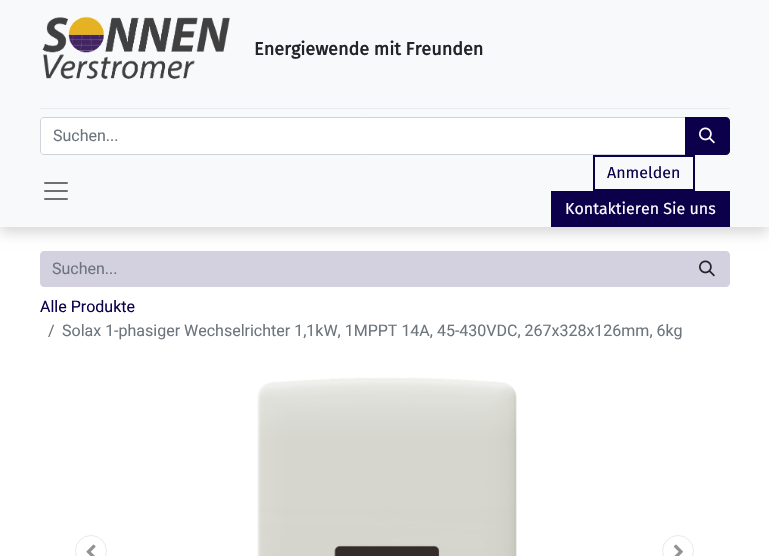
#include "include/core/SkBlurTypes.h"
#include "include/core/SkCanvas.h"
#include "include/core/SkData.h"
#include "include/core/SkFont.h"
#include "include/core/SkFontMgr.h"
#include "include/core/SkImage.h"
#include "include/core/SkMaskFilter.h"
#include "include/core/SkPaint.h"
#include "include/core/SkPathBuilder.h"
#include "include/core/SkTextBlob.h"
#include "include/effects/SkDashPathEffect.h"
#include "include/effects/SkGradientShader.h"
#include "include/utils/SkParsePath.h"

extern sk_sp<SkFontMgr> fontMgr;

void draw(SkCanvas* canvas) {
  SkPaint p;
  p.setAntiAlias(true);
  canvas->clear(SK_ColorWHITE);
  p.setColor(SkColorSetRGB(211, 208, 224));
  canvas->drawPath(SkPathBuilder().moveTo(44, 251).lineTo(686, 251).lineTo(686, 287).lineTo(44, 287).cubicTo(42, 287, 40, 285, 40, 283).lineTo(40, 255).cubicTo(40, 253, 42, 251, 44, 251).close().detach(), p);
  canvas->drawPath(SkPathBuilder().moveTo(686, 252).lineTo(726, 252).cubicTo(727.5f, 252, 729, 253.5f, 729, 255).lineTo(729, 283).cubicTo(729, 284.5f, 727.5f, 286, 726, 286).lineTo(686, 286).close().detach(), p);
  p.setStyle(SkPaint::kStroke_Style);
  p.setStrokeWidth(2);
  canvas->drawPath(SkPathBuilder().moveTo(686, 252).lineTo(726, 252).cubicTo(727.5f, 252, 729, 253.5f, 729, 255).lineTo(729, 283).cubicTo(729, 284.5f, 727.5f, 286, 726, 286).lineTo(686, 286).close().detach(), p);
  p.setStyle(SkPaint::kFill_Style);
  p.setColor(SkColorSetARGB(38, 0, 0, 0));
  p.setMaskFilter(SkMaskFilter::MakeBlur(kNormal_SkBlurStyle, 6));
  canvas->drawRect(SkRect::MakeLTRB(0, 6, 769, 233), p);
  p.setMaskFilter(nullptr);
  p.setColor(SkColorSetRGB(248, 249, 250));
  canvas->drawRect(SkRect::MakeLTRB(0, 0, 769, 227), p);
  canvas->drawImageRect(SkImages::DeferredFromEncodedData(SkData::MakeFromFileName("images/1.png")), SkRect::MakeLTRB(42, 16, 230, 79), SkSamplingOptions());
  p.setColor(SkColorSetRGB(233, 236, 239));
  canvas->drawRect(SkRect::MakeLTRB(40, 108, 730, 109), p);
  p.setColor(SK_ColorWHITE);
  canvas->drawPath(SkPathBuilder().moveTo(44, 117.5f).lineTo(685.5f, 117.5f).lineTo(685.5f, 154.5f).lineTo(44, 154.5f).cubicTo(42, 154.5f, 40.5f, 153, 40.5f, 151).lineTo(40.5f, 121).cubicTo(40.5f, 119, 42, 117.5f, 44, 117.5f).close().detach(), p);
  p.setStyle(SkPaint::kStroke_Style);
  p.setStrokeWidth(1);
  p.setColor(SkColorSetRGB(206, 212, 218));
  canvas->drawPath(SkPathBuilder().moveTo(44, 117.5f).lineTo(685.5f, 117.5f).lineTo(685.5f, 154.5f).lineTo(44, 154.5f).cubicTo(42, 154.5f, 40.5f, 153, 40.5f, 151).lineTo(40.5f, 121).cubicTo(40.5f, 119, 42, 117.5f, 44, 117.5f).close().detach(), p);
  p.setStyle(SkPaint::kFill_Style);
  p.setColor(SkColorSetRGB(13, 0, 75));
  canvas->drawPath(SkPathBuilder().moveTo(686, 118).lineTo(726, 118).cubicTo(727.5f, 118, 729, 119.5f, 729, 121).lineTo(729, 151).cubicTo(729, 152.5f, 727.5f, 154, 726, 154).lineTo(686, 154).close().detach(), p);
  p.setStyle(SkPaint::kStroke_Style);
  p.setStrokeWidth(2);
  canvas->drawPath(SkPathBuilder().moveTo(686, 118).lineTo(726, 118).cubicTo(727.5f, 118, 729, 119.5f, 729, 121).lineTo(729, 151).cubicTo(729, 152.5f, 727.5f, 154, 726, 154).lineTo(686, 154).close().detach(), p);
  canvas->drawImageRect(SkImages::DeferredFromEncodedData(SkData::MakeFromFileName("images/2.png")), SkRect::MakeLTRB(699, 127, 715, 144), SkSamplingOptions());
  canvas->drawImageRect(SkImages::DeferredFromEncodedData(SkData::MakeFromFileName("images/3.png")), SkRect::MakeLTRB(44, 182, 68, 200), SkSamplingOptions());
  canvas->drawRect(SkRect::MakeLTRB(594, 156, 694, 190), p);
  p.setStyle(SkPaint::kFill_Style);
  canvas->drawRect(SkRect::MakeLTRB(552, 192, 729, 226), p);
  p.setStyle(SkPaint::kStroke_Style);
  canvas->drawRect(SkRect::MakeLTRB(552, 192, 729, 226), p);
  canvas->drawImageRect(SkImages::DeferredFromEncodedData(SkData::MakeFromFileName("images/4.png")), SkRect::MakeLTRB(699, 260, 715, 277), SkSamplingOptions());
  p.setStrokeWidth(1);
  p.setColor(SkColorSetRGB(231, 234, 237));
  canvas->drawCircle(91, 551, 15.5f, p);
  canvas->drawImageRect(SkImages::DeferredFromEncodedData(SkData::MakeFromFileName("images/5.png")), SkRect::MakeLTRB(86, 544, 96, 556), SkSamplingOptions());
  canvas->drawImageRect(SkImages::DeferredFromEncodedData(SkData::MakeFromFileName("images/6.png")), SkRect::MakeLTRB(257, 377, 517, 556), SkSamplingOptions());
  canvas->drawCircle(678, 551, 15.5f, p);
  canvas->drawImageRect(SkImages::DeferredFromEncodedData(SkData::MakeFromFileName("images/7.png")), SkRect::MakeLTRB(673, 544, 683, 556), SkSamplingOptions());
  SkFont font1(fontMgr->matchFamilyStyle("Fira Sans", SkFontStyle::Bold()), 18);
  font1.setSubpixel(true);
  p.setStyle(SkPaint::kFill_Style);
  p.setColor(SkColorSetRGB(33, 37, 41));
  canvas->drawString("Energiewende mit Freunden", 254, 55, font1, p);
  SkFont font2(fontMgr->matchFamilyStyle("Roboto", SkFontStyle::Normal()), 16);
  font2.setSubpixel(true);
  p.setColor(SkColorSetRGB(108, 117, 125));
  canvas->drawString("Suchen...", 53, 141, font2, p);
  SkFont font3(fontMgr->matchFamilyStyle("Fira Sans", SkFontStyle::Normal()), 16);
  font3.setSubpixel(true);
  p.setColor(SkColorSetRGB(13, 0, 75));
  canvas->drawString("Anmelden", 607, 178, font3, p);
  p.setColor(SK_ColorWHITE);
  canvas->drawString("Kontaktieren Sie uns", 565, 214, font3, p);
  p.setColor(SkColorSetRGB(108, 117, 125));
  canvas->drawString("Suchen...", 52, 274, font2, p);
  p.setColor(SkColorSetRGB(13, 0, 75));
  canvas->drawString("Alle Produkte", 40, 312, font2, p);
  p.setColor(SkColorSetRGB(108, 117, 125));
  canvas->drawString("/", 48, 336, font2, p);
  canvas->drawString("Solax 1-phasiger Wechselrichter 1,1kW, 1MPPT 14A, 45-430VDC, 267x328x126mm, 6kg", 62, 336, font2, p);
}
